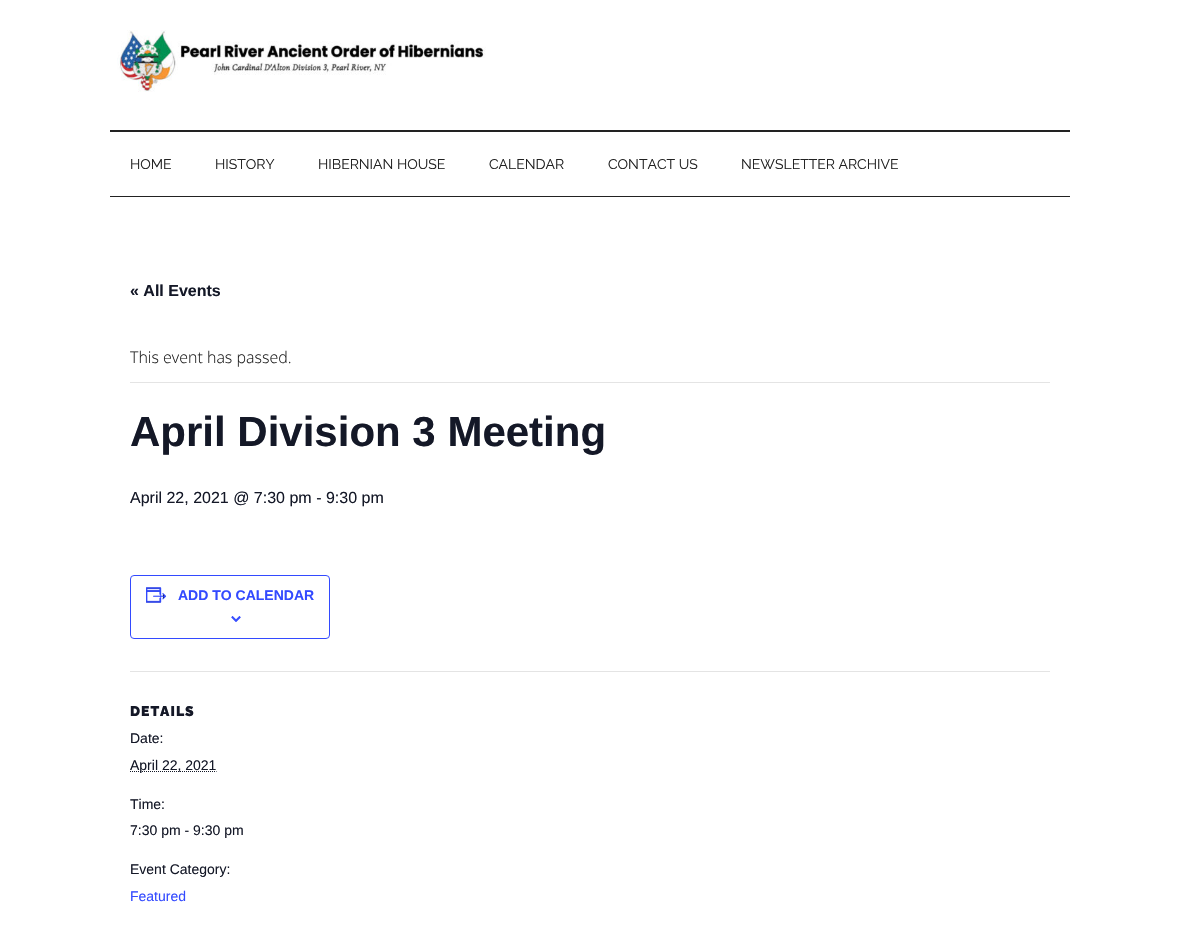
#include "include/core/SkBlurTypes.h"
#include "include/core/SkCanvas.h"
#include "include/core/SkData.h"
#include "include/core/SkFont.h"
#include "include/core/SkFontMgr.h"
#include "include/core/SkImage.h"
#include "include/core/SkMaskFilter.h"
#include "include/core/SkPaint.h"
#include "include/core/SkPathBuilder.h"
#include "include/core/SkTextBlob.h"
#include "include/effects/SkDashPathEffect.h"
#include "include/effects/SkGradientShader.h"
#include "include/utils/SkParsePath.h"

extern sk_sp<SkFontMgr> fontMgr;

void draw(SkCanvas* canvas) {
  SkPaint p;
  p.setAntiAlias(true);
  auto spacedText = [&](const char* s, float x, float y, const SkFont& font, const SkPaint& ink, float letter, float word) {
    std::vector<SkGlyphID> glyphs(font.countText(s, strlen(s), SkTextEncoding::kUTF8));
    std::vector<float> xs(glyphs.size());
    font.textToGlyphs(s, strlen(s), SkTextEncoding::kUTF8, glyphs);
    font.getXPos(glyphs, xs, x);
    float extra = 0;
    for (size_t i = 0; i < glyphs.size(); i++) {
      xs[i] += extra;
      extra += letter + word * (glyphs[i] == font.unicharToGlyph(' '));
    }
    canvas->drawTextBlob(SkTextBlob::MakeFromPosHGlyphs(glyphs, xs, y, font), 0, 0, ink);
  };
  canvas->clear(SK_ColorWHITE);
  p.setColor(SkColorSetRGB(34, 34, 34));
  canvas->drawRect(SkRect::MakeLTRB(110, 130, 1070, 132), p);
  canvas->drawImageRect(SkImages::DeferredFromEncodedData(SkData::MakeFromFileName("images/1.png")), SkRect::MakeLTRB(117, 30, 486, 92), SkSamplingOptions());
  canvas->drawRect(SkRect::MakeLTRB(110, 196, 1070, 197), p);
  p.setColor(SkColorSetRGB(228, 228, 228));
  canvas->drawRect(SkRect::MakeLTRB(130, 382, 1050, 383), p);
  p.setStyle(SkPaint::kStroke_Style);
  p.setStrokeWidth(1);
  p.setColor(SkColorSetRGB(51, 74, 255));
  canvas->drawRoundRect(SkRect::MakeLTRB(130.5f, 575.5f, 329.5f, 638.5f), 3.5f, 3.5f, p);
  canvas->drawImageRect(SkImages::DeferredFromEncodedData(SkData::MakeFromFileName("images/2.png")), SkRect::MakeLTRB(146, 587, 167, 603), SkSamplingOptions());
  canvas->drawImageRect(SkImages::DeferredFromEncodedData(SkData::MakeFromFileName("images/3.png")), SkRect::MakeLTRB(231, 616, 241, 622), SkSamplingOptions());
  p.setStyle(SkPaint::kFill_Style);
  p.setColor(SkColorSetRGB(228, 228, 228));
  canvas->drawRect(SkRect::MakeLTRB(130, 671, 1050, 672), p);
  p.setStyle(SkPaint::kStroke_Style);
  p.setColor(SkColorSetRGB(20, 24, 39));
  p.setPathEffect(SkDashPathEffect::Make({{1, 1}}, 0));
  canvas->drawPath(SkPathBuilder().moveTo(130, 771.5f).lineTo(216.5f, 771.5f).detach(), p);
  p.setPathEffect(nullptr);
  SkFont font1(fontMgr->matchFamilyStyle("Raleway", SkFontStyle::Normal()), 14);
  font1.setSubpixel(true);
  p.setStyle(SkPaint::kFill_Style);
  p.setColor(SkColorSetRGB(34, 34, 34));
  canvas->drawString("HOME", 130, 169, font1, p);
  canvas->drawString("HISTORY", 215, 169, font1, p);
  canvas->drawString("HIBERNIAN HOUSE", 318, 169, font1, p);
  canvas->drawString("CALENDAR", 489, 169, font1, p);
  canvas->drawString("CONTACT US", 608, 169, font1, p);
  canvas->drawString("NEWSLETTER ARCHIVE", 741, 169, font1, p);
  SkFont font2(fontMgr->matchFamilyStyle("Liberation Sans", SkFontStyle::Bold()), 16);
  font2.setSubpixel(true);
  p.setColor(SkColorSetRGB(20, 24, 39));
  canvas->drawString("« All Events", 130, 296, font2, p);
  SkFont font3(fontMgr->matchFamilyStyle("Open Sans", SkFontStyle(300, SkFontStyle::kNormal_Width, SkFontStyle::kUpright_Slant)), 16);
  font3.setSubpixel(true);
  p.setColor(SkColorSetRGB(34, 34, 34));
  canvas->drawString("This event has passed.", 130, 363, font3, p);
  SkFont font4(fontMgr->matchFamilyStyle("Liberation Sans", SkFontStyle::Bold()), 42);
  font4.setSubpixel(true);
  p.setColor(SkColorSetRGB(20, 24, 39));
  canvas->drawString("April Division 3 Meeting", 130, 446, font4, p);
  SkFont font5(fontMgr->matchFamilyStyle("Liberation Sans", SkFontStyle::Normal()), 16);
  font5.setSubpixel(true);
  canvas->drawString("April 22, 2021 @ 7:30 pm - 9:30 pm", 130, 503, font5, p);
  SkFont font6(fontMgr->matchFamilyStyle("Liberation Sans", SkFontStyle::Bold()), 14);
  font6.setSubpixel(true);
  p.setColor(SkColorSetRGB(51, 74, 255));
  canvas->drawString("ADD TO CALENDAR", 178, 600, font6, p);
  SkFont font7(fontMgr->matchFamilyStyle("Raleway", SkFontStyle(900, SkFontStyle::kNormal_Width, SkFontStyle::kUpright_Slant)), 14);
  font7.setSubpixel(true);
  p.setColor(SkColorSetRGB(20, 24, 39));
  spacedText("DETAILS", 130, 716, font7, p, 1, 0);
  SkFont font8(fontMgr->matchFamilyStyle("Liberation Sans", SkFontStyle::Normal()), 14);
  font8.setSubpixel(true);
  canvas->drawString("Date:", 130, 743, font8, p);
  canvas->drawString("April 22, 2021", 130, 770, font8, p);
  canvas->drawString("Time:", 130, 809, font8, p);
  canvas->drawString("7:30 pm - 9:30 pm", 130, 835, font8, p);
  canvas->drawString("Event Category:", 130, 874, font8, p);
  p.setColor(SkColorSetRGB(51, 74, 255));
  canvas->drawString("Featured", 130, 901, font8, p);
}
